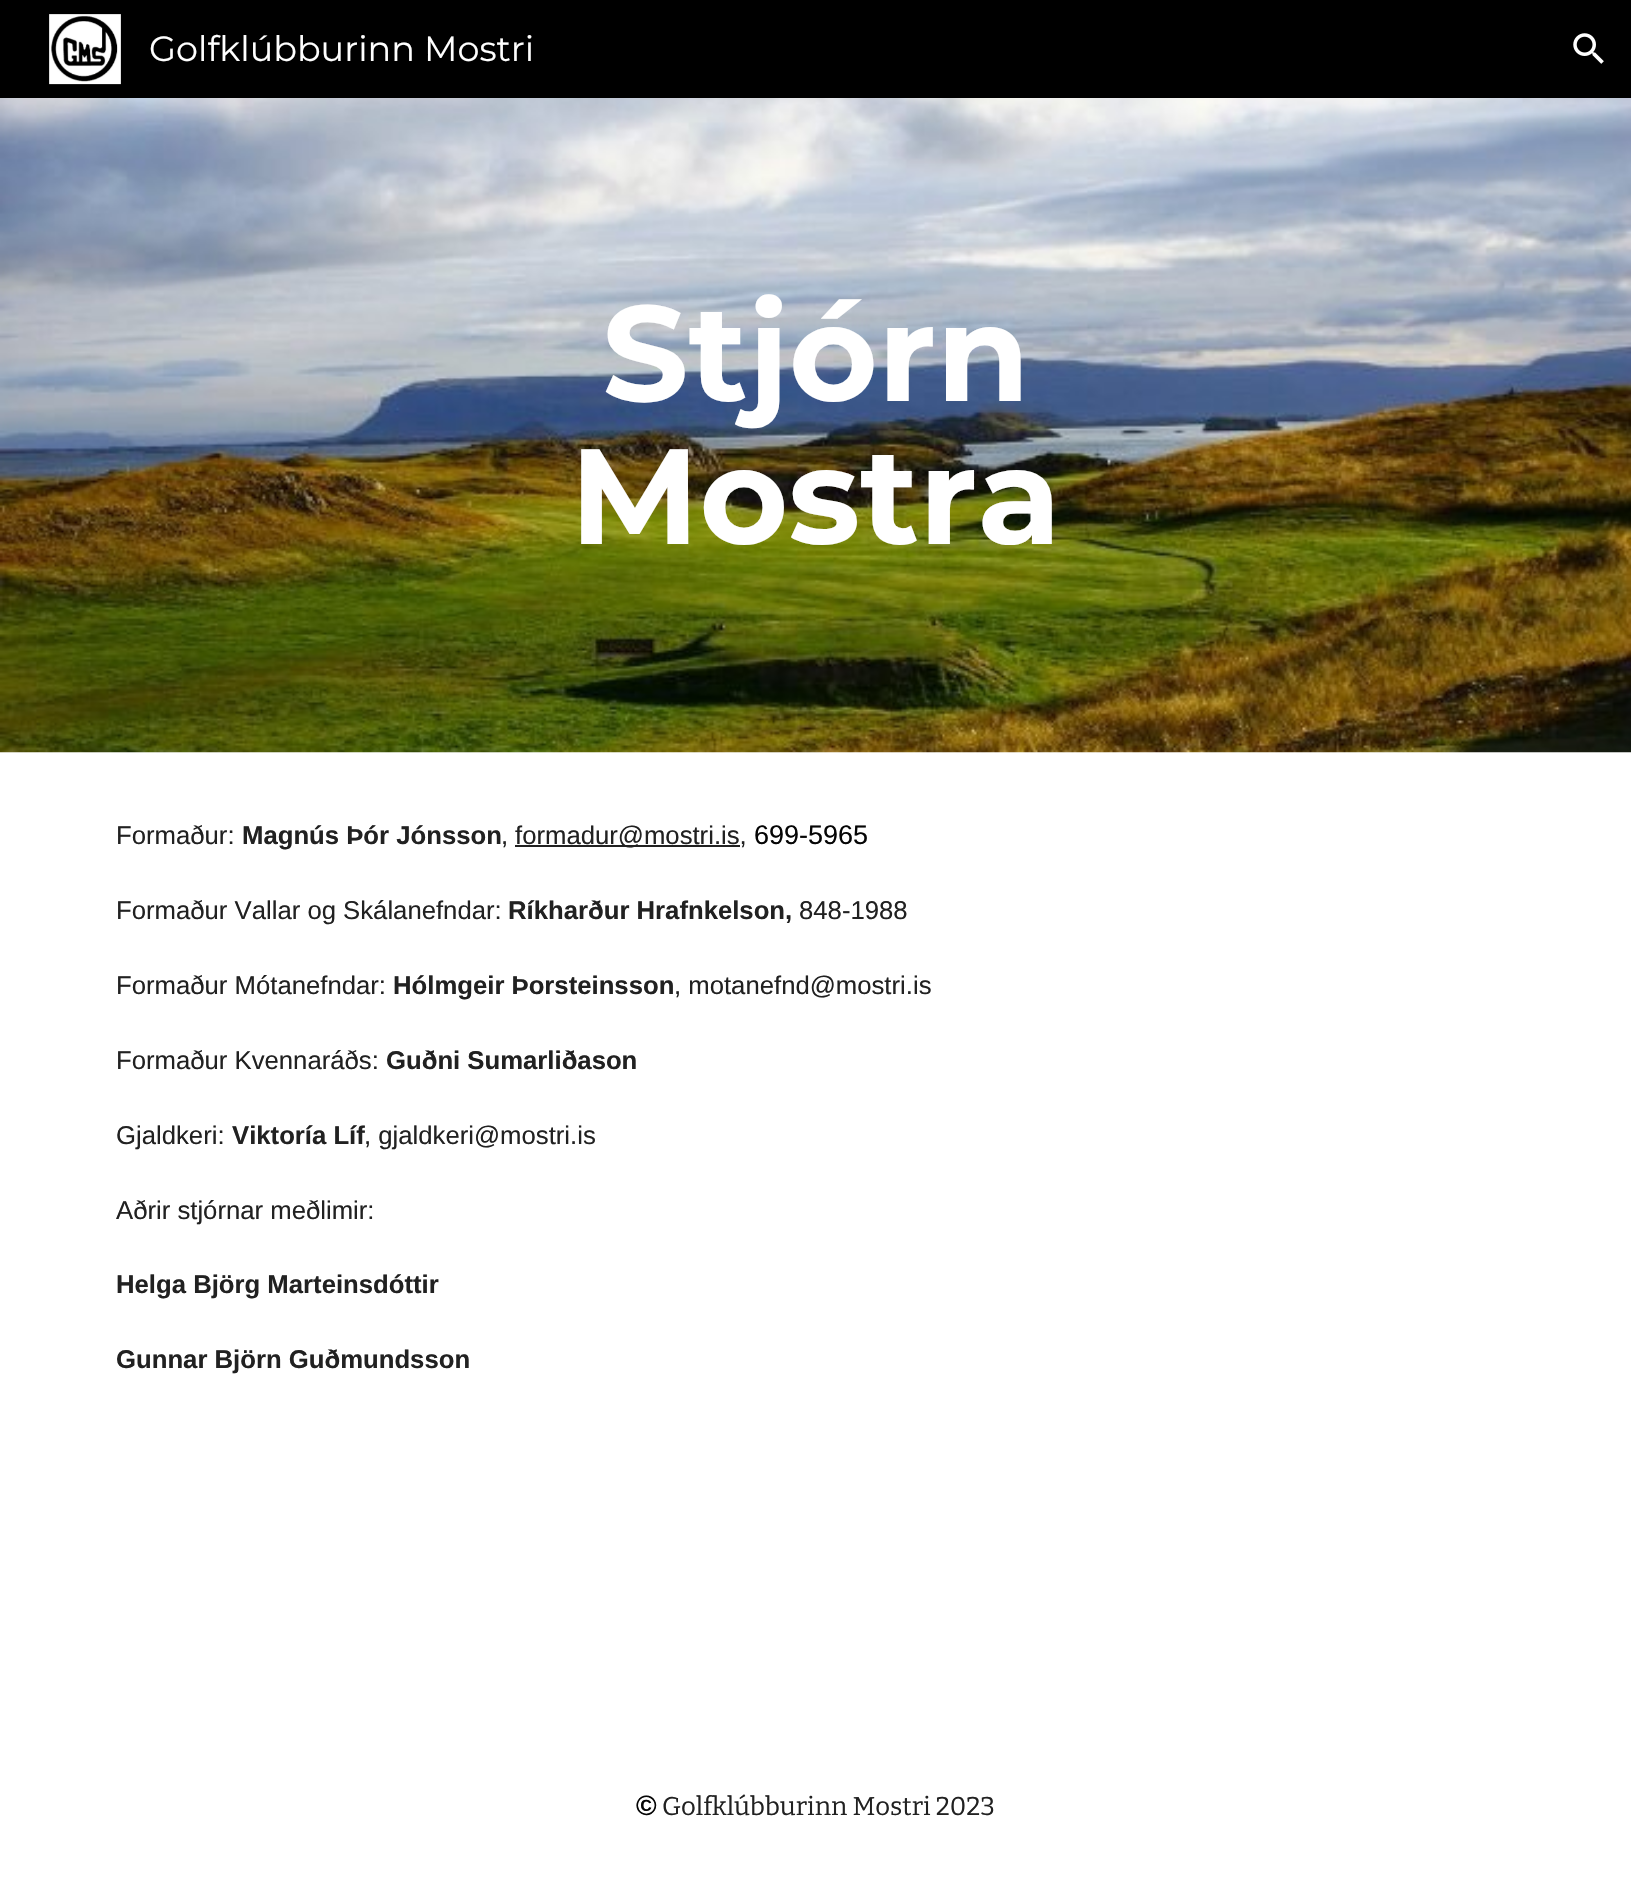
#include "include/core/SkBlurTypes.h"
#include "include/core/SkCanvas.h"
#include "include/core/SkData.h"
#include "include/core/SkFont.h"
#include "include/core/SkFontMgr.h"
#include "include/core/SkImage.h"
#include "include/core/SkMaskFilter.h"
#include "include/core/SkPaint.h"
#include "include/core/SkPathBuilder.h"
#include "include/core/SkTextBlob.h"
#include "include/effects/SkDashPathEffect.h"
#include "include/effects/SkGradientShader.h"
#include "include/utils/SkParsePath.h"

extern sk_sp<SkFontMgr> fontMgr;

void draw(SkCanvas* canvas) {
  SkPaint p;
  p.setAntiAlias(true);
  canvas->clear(SK_ColorWHITE);
  p.setColor(SK_ColorBLACK);
  canvas->drawRect(SkRect::MakeLTRB(0, 0, 1631, 98), p);
  canvas->drawImageRect(SkImages::DeferredFromEncodedData(SkData::MakeFromFileName("images/1.png")), SkRect::MakeLTRB(49, 14, 121, 85), SkSamplingOptions());
  canvas->drawImageRect(SkImages::DeferredFromEncodedData(SkData::MakeFromFileName("images/2.png")), SkRect::MakeLTRB(1573, 33, 1604, 64), SkSamplingOptions());
  canvas->drawImageRect(SkImages::DeferredFromEncodedData(SkData::MakeFromFileName("images/3.png")), SkRect::MakeLTRB(0, 98, 1631, 753), SkSamplingOptions());
  p.setColor(SkColorSetRGB(33, 33, 33));
  canvas->drawRect(SkRect::MakeLTRB(515, 845, 740, 847), p);
  SkFont font1(fontMgr->matchFamilyStyle("Montserrat", SkFontStyle::Normal()), 35);
  font1.setSubpixel(true);
  p.setColor(SK_ColorWHITE);
  canvas->drawString("Golfklúbburinn Mostri", 149, 61, font1, p);
  SkFont font2(fontMgr->matchFamilyStyle("Montserrat", SkFontStyle::Bold()), 135.5f);
  font2.setSubpixel(true);
  canvas->drawString("Stjórn", 602, 401, font2, p);
  canvas->drawString("Mostra", 570, 544, font2, p);
  SkFont font3(fontMgr->matchFamilyStyle("Liberation Sans", SkFontStyle::Normal()), 25.7f);
  font3.setSubpixel(true);
  p.setColor(SkColorSetRGB(33, 33, 33));
  canvas->drawString("Formaður:", 116, 844, font3, p);
  SkFont font4(fontMgr->matchFamilyStyle("Liberation Sans", SkFontStyle::Bold()), 25.7f);
  font4.setSubpixel(true);
  canvas->drawString("Magnús Þór Jónsson", 242, 844, font4, p);
  canvas->drawString(",", 501, 844, font3, p);
  canvas->drawString("formadur@mostri.is,", 515, 844, font3, p);
  SkFont font5(fontMgr->matchFamilyStyle("Liberation Sans", SkFontStyle::Normal()), 27);
  font5.setSubpixel(true);
  p.setColor(SkColorSetRGB(5, 5, 5));
  canvas->drawString("699-5965", 754, 844, font5, p);
  p.setColor(SkColorSetRGB(33, 33, 33));
  canvas->drawString("Formaður Vallar og Skálanefndar:", 116, 919, font3, p);
  canvas->drawString("Ríkharður Hrafnkelson,", 508, 919, font4, p);
  canvas->drawString("848-1988", 799, 919, font3, p);
  canvas->drawString("Formaður Mótanefndar:", 116, 994, font3, p);
  canvas->drawString("Hólmgeir Þorsteinsson", 393, 994, font4, p);
  canvas->drawString(", motanefnd@mostri.is", 674, 994, font3, p);
  canvas->drawString("Formaður Kvennaráðs:", 116, 1069, font3, p);
  canvas->drawString("Guðni Sumarliðason", 386, 1069, font4, p);
  canvas->drawString("Gjaldkeri:", 116, 1144, font3, p);
  canvas->drawString("Viktoría Líf", 232, 1144, font4, p);
  canvas->drawString(", gjaldkeri@mostri.is", 364, 1144, font3, p);
  canvas->drawString("Aðrir stjórnar meðlimir:", 116, 1219, font3, p);
  canvas->drawString("Helga Björg Marteinsdóttir", 116, 1293, font4, p);
  canvas->drawString("Gunnar Björn Guðmundsson", 116, 1368, font4, p);
  SkFont font6(fontMgr->matchFamilyStyle("Liberation Sans", SkFontStyle::Bold()), 28);
  font6.setSubpixel(true);
  p.setColor(SkColorSetRGB(5, 5, 5));
  canvas->drawString("©", 636, 1815, font6, p);
  SkFont font7(fontMgr->matchFamilyStyle("Bitter", SkFontStyle::Normal()), 25.7f);
  font7.setSubpixel(true);
  p.setColor(SkColorSetRGB(33, 33, 33));
  canvas->drawString("Golfklúbburinn Mostri 2023", 662, 1815, font7, p);
}
